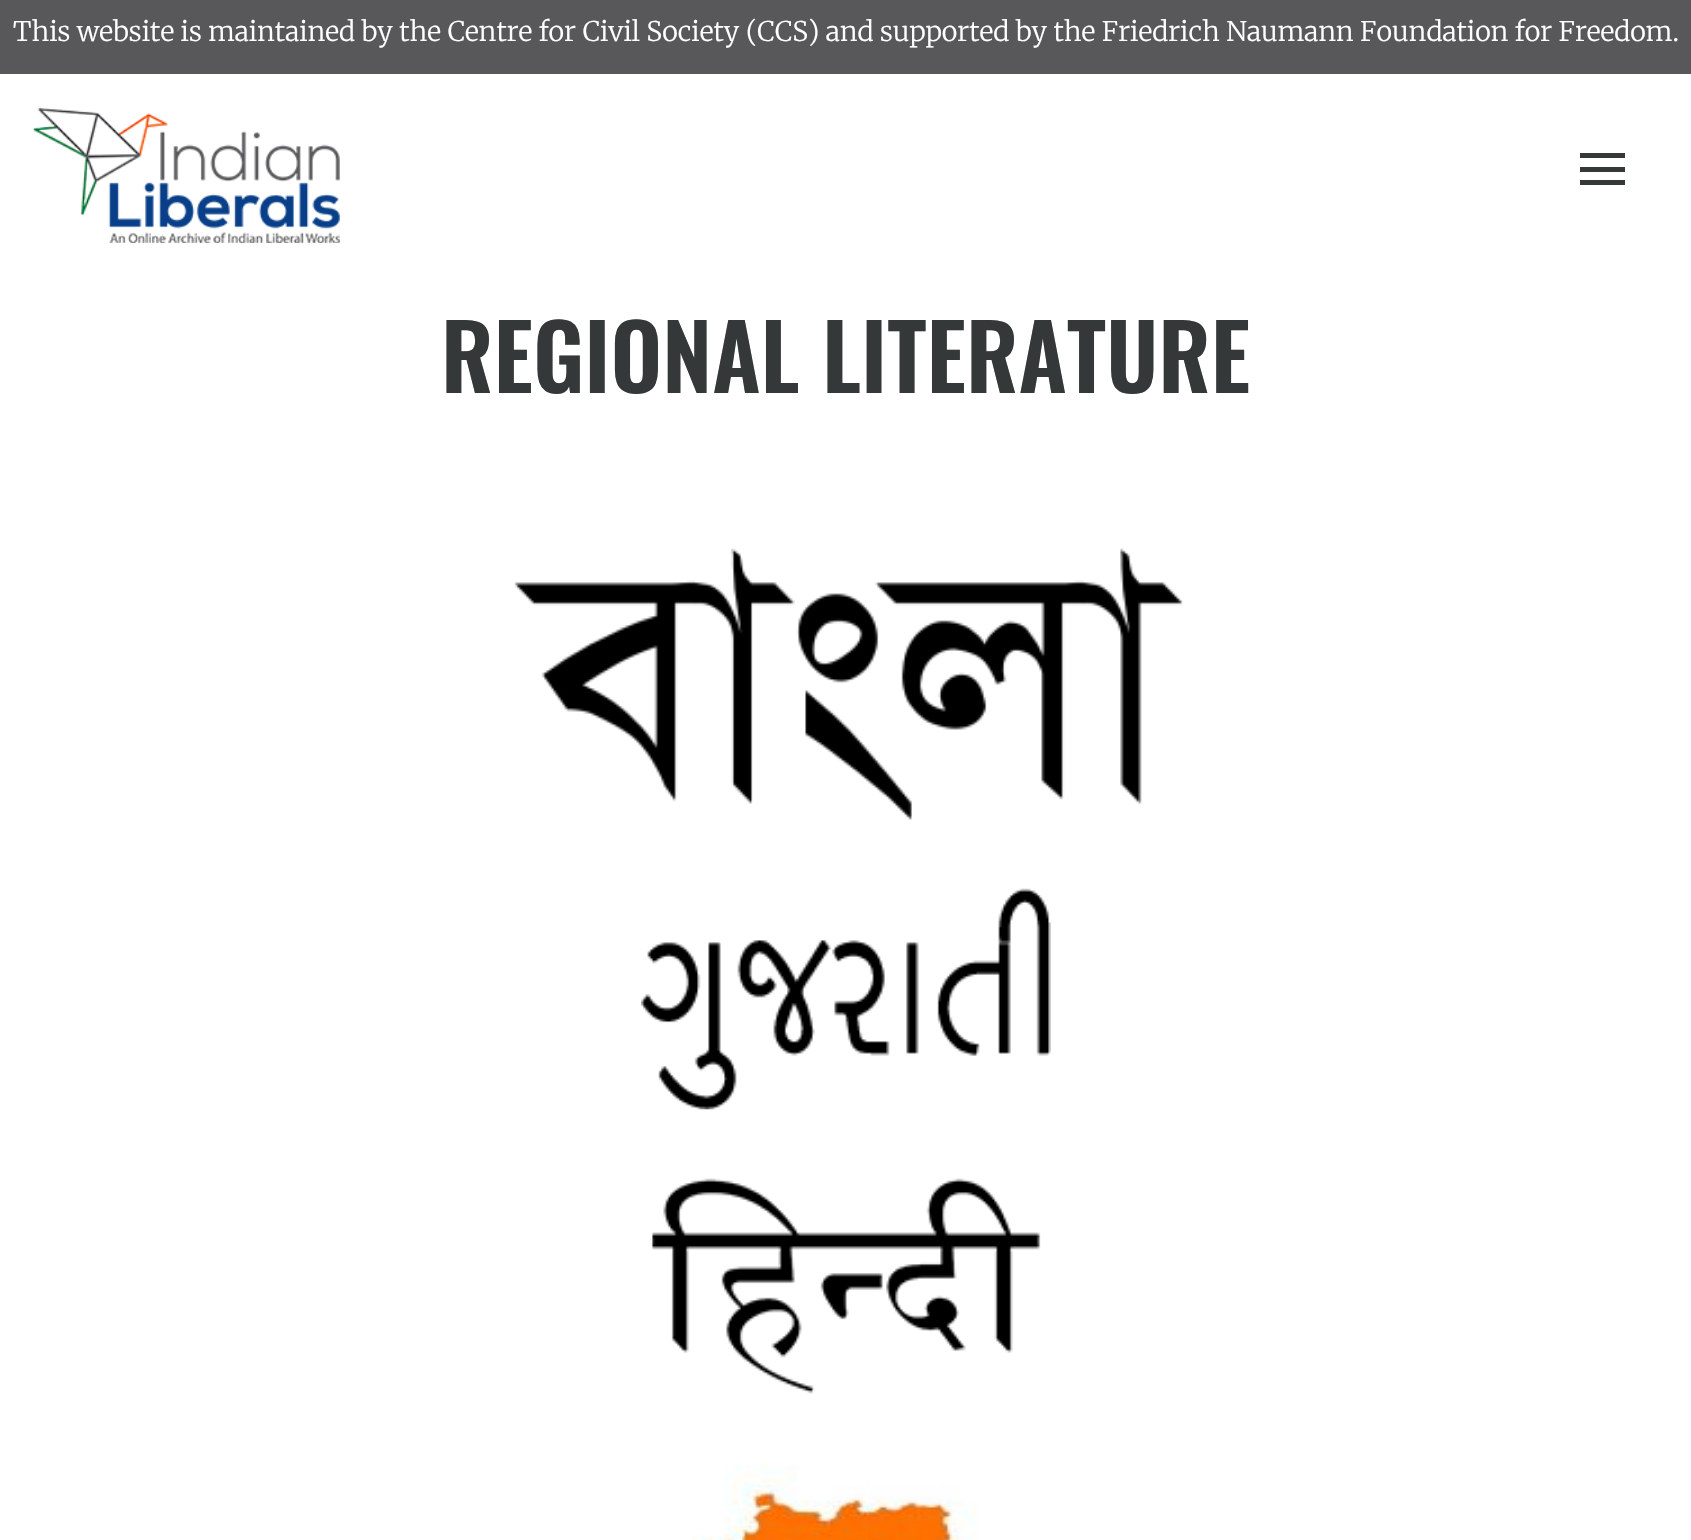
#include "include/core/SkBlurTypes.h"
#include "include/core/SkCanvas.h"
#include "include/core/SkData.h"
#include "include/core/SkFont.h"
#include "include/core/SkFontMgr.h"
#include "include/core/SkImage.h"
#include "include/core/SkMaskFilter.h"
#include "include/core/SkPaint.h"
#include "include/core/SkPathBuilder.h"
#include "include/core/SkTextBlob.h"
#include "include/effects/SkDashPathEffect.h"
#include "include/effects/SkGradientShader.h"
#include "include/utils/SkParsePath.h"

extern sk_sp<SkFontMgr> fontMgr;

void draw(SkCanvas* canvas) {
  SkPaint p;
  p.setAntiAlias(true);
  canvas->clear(SkColorSetRGB(88, 88, 90));
  p.setColor(SK_ColorWHITE);
  canvas->drawRect(SkRect::MakeLTRB(0, 74, 1691, 1540), p);
  canvas->drawImageRect(SkImages::DeferredFromEncodedData(SkData::MakeFromFileName("images/1.png")), SkRect::MakeLTRB(33, 108, 340, 243), SkSamplingOptions());
  p.setColor(SkColorSetRGB(52, 56, 56));
  canvas->drawRect(SkRect::MakeLTRB(1580, 153, 1625, 158), p);
  canvas->drawRect(SkRect::MakeLTRB(1580, 167, 1625, 172), p);
  canvas->drawRect(SkRect::MakeLTRB(1580, 180, 1625, 185), p);
  canvas->drawImageRect(SkImages::DeferredFromEncodedData(SkData::MakeFromFileName("images/2.png")), SkRect::MakeLTRB(514, 548, 1184, 820), SkSamplingOptions());
  canvas->drawImageRect(SkImages::DeferredFromEncodedData(SkData::MakeFromFileName("images/3.png")), SkRect::MakeLTRB(641, 888, 1051, 1110), SkSamplingOptions());
  canvas->drawImageRect(SkImages::DeferredFromEncodedData(SkData::MakeFromFileName("images/4.png")), SkRect::MakeLTRB(650, 1178, 1041, 1394), SkSamplingOptions());
  canvas->drawImageRect(SkImages::DeferredFromEncodedData(SkData::MakeFromFileName("images/5.png")), SkRect::MakeLTRB(692, 1464, 978, 1540), SkSamplingOptions());
  SkFont font1(fontMgr->matchFamilyStyle("Merriweather", SkFontStyle(300, SkFontStyle::kNormal_Width, SkFontStyle::kUpright_Slant)), 27);
  font1.setSubpixel(true);
  p.setColor(SK_ColorWHITE);
  canvas->drawString("This website is maintained by the Centre for Civil Society (CCS) and supported by the Friedrich Naumann Foundation for Freedom.", 13, 41, font1, p);
  SkFont font2(fontMgr->matchFamilyStyle("Oswald", SkFontStyle(600, SkFontStyle::kNormal_Width, SkFontStyle::kUpright_Slant)), 90);
  font2.setSubpixel(true);
  p.setColor(SkColorSetRGB(52, 56, 56));
  canvas->drawString("REGIONAL LITERATURE", 441, 393, font2, p);
}
